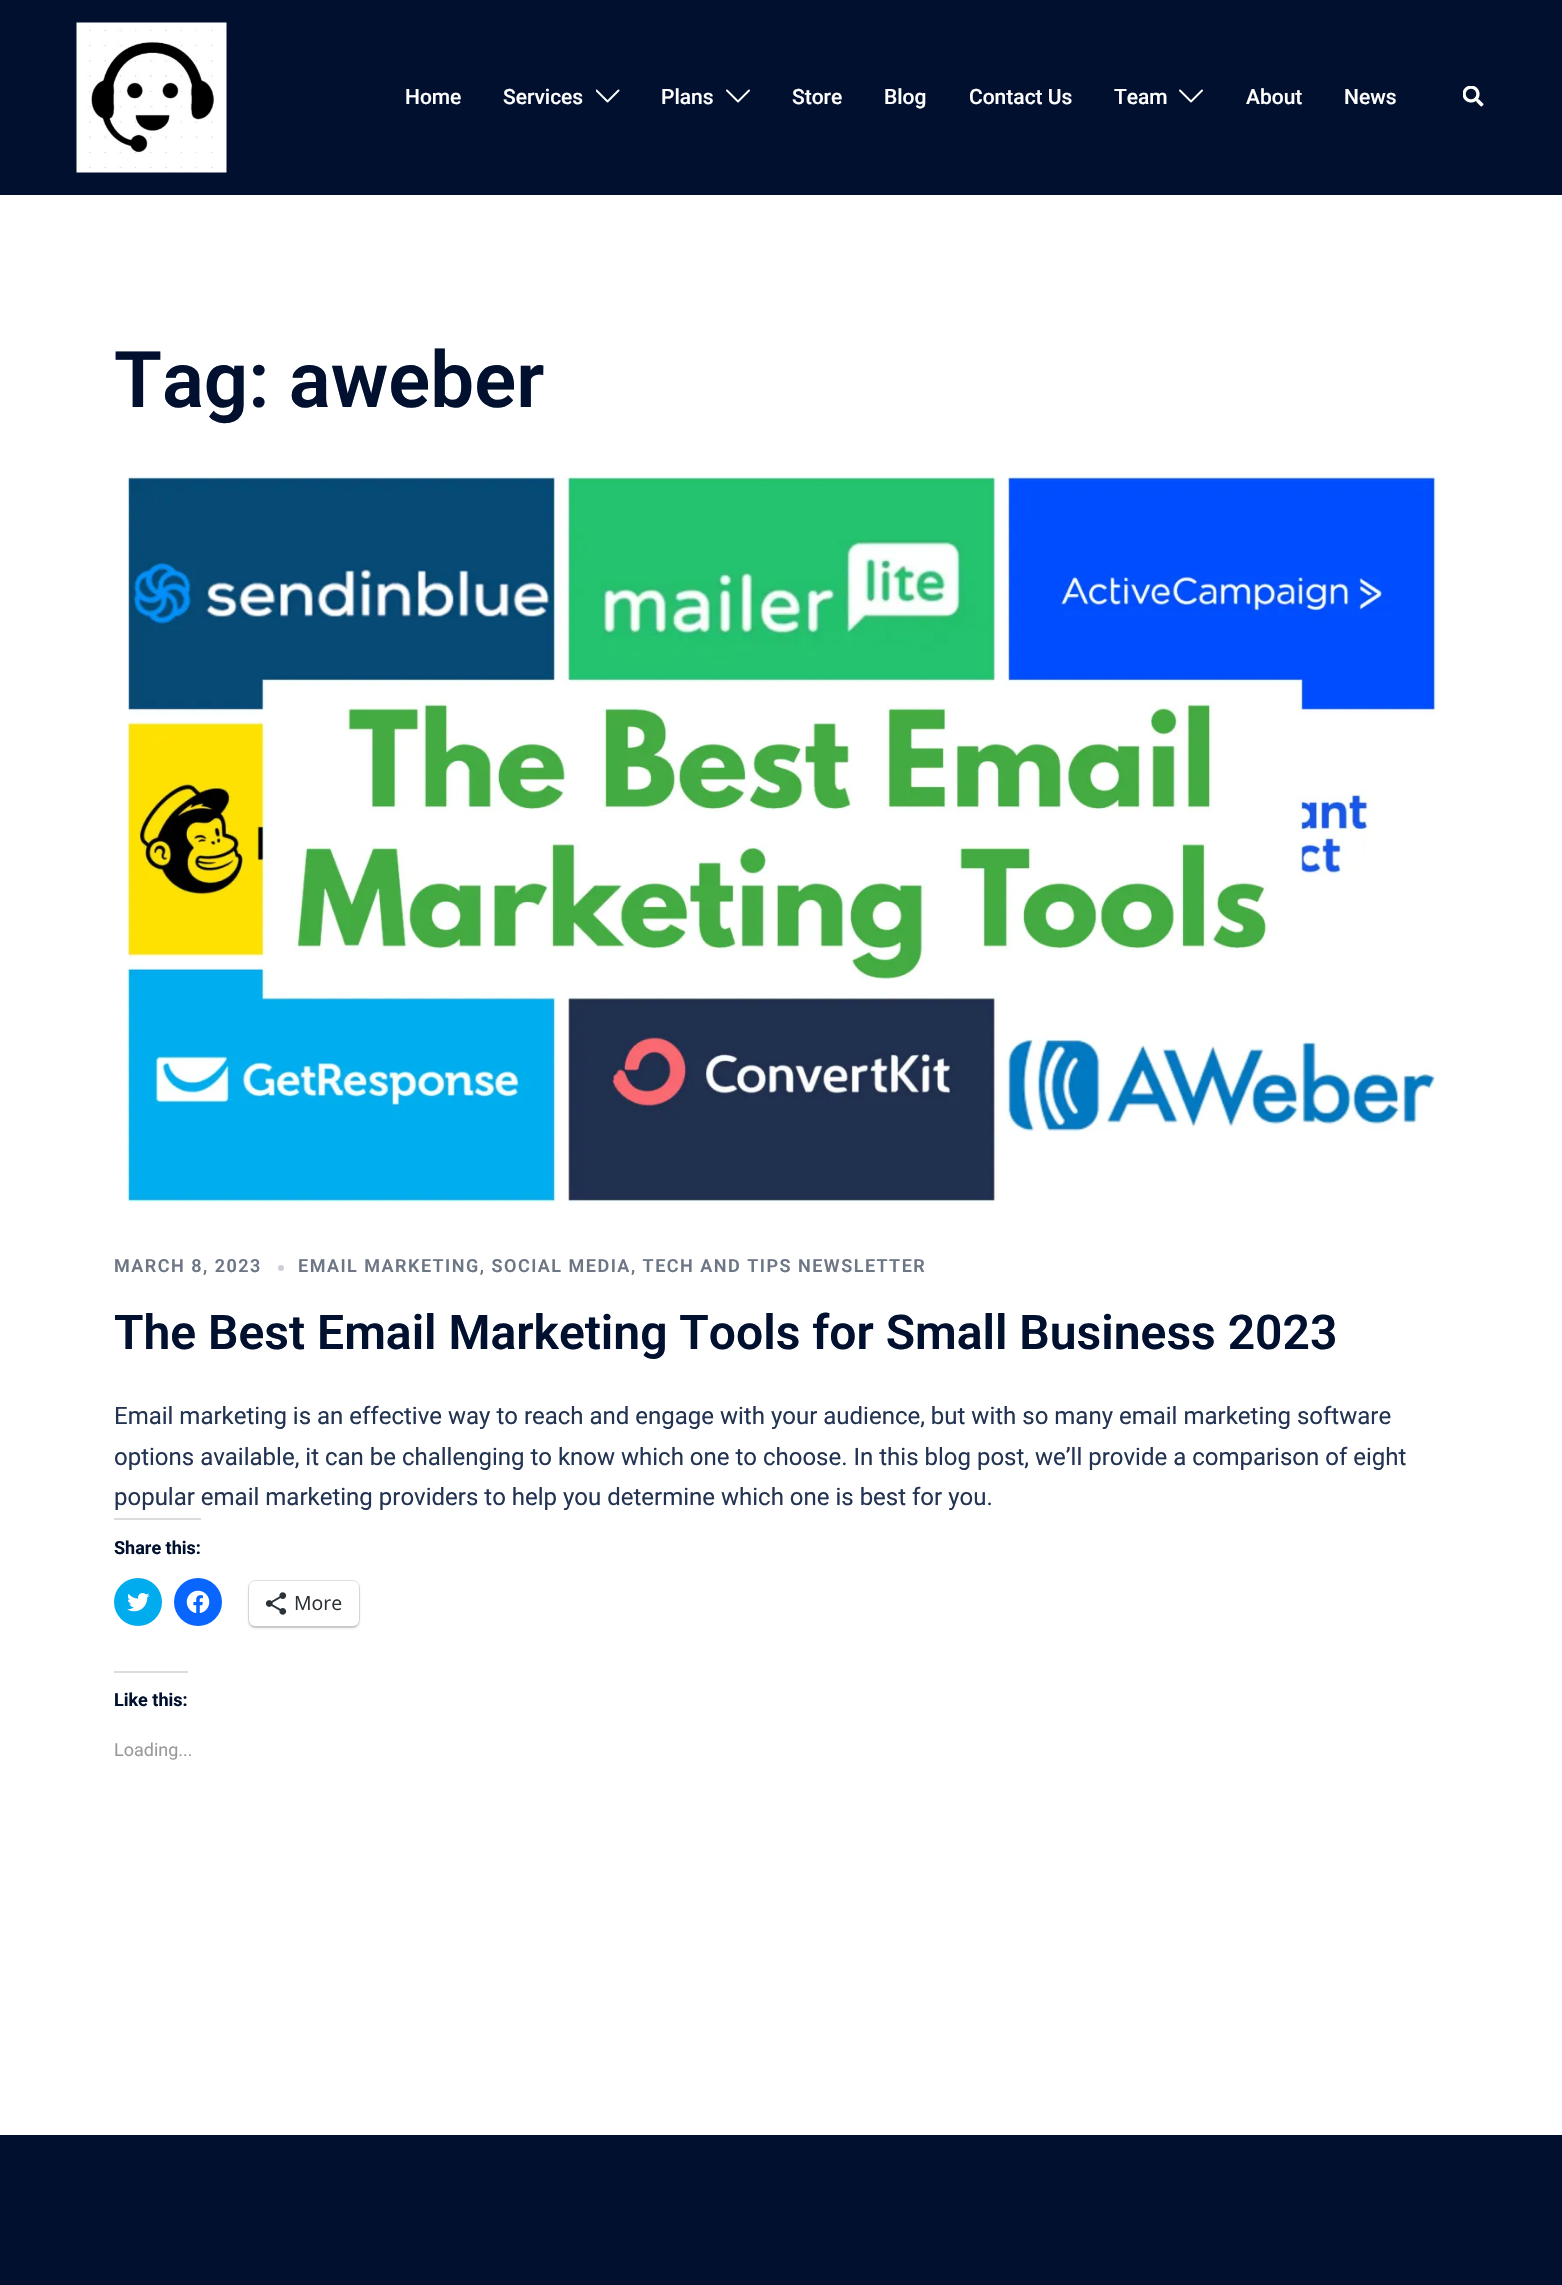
#include "include/core/SkBlurTypes.h"
#include "include/core/SkCanvas.h"
#include "include/core/SkData.h"
#include "include/core/SkFont.h"
#include "include/core/SkFontMgr.h"
#include "include/core/SkImage.h"
#include "include/core/SkMaskFilter.h"
#include "include/core/SkPaint.h"
#include "include/core/SkPathBuilder.h"
#include "include/core/SkTextBlob.h"
#include "include/effects/SkDashPathEffect.h"
#include "include/effects/SkGradientShader.h"
#include "include/utils/SkParsePath.h"

extern sk_sp<SkFontMgr> fontMgr;

void draw(SkCanvas* canvas) {
  SkPaint p;
  p.setAntiAlias(true);
  auto spacedText = [&](const char* s, float x, float y, const SkFont& font, const SkPaint& ink, float letter, float word) {
    std::vector<SkGlyphID> glyphs(font.countText(s, strlen(s), SkTextEncoding::kUTF8));
    std::vector<float> xs(glyphs.size());
    font.textToGlyphs(s, strlen(s), SkTextEncoding::kUTF8, glyphs);
    font.getXPos(glyphs, xs, x);
    float extra = 0;
    for (size_t i = 0; i < glyphs.size(); i++) {
      xs[i] += extra;
      extra += letter + word * (glyphs[i] == font.unicharToGlyph(' '));
    }
    canvas->drawTextBlob(SkTextBlob::MakeFromPosHGlyphs(glyphs, xs, y, font), 0, 0, ink);
  };
  canvas->clear(SK_ColorWHITE);
  p.setColor(SkColorSetRGB(0, 16, 46));
  canvas->drawRect(SkRect::MakeLTRB(0, 0, 1562, 195), p);
  canvas->drawImageRect(SkImages::DeferredFromEncodedData(SkData::MakeFromFileName("images/1.png")), SkRect::MakeLTRB(76, 22, 227, 173), SkSamplingOptions());
  canvas->drawImageRect(SkImages::DeferredFromEncodedData(SkData::MakeFromFileName("images/2.png")), SkRect::MakeLTRB(596, 89, 620, 103), SkSamplingOptions());
  canvas->drawImageRect(SkImages::DeferredFromEncodedData(SkData::MakeFromFileName("images/3.png")), SkRect::MakeLTRB(726, 89, 750, 103), SkSamplingOptions());
  canvas->drawImageRect(SkImages::DeferredFromEncodedData(SkData::MakeFromFileName("images/3.png")), SkRect::MakeLTRB(1179, 89, 1203, 103), SkSamplingOptions());
  canvas->drawImageRect(SkImages::DeferredFromEncodedData(SkData::MakeFromFileName("images/4.png")), SkRect::MakeLTRB(1463, 86, 1484, 107), SkSamplingOptions());
  canvas->drawImageRect(SkImages::DeferredFromEncodedData(SkData::MakeFromFileName("images/5.png")), SkRect::MakeLTRB(127, 474, 1436, 1204), SkSamplingOptions());
  p.setColor(SkColorSetRGB(204, 207, 213));
  canvas->drawCircle(281, 1268, 3, p);
  p.setColor(SkColorSetRGB(220, 220, 222));
  canvas->drawRect(SkRect::MakeLTRB(114, 1518, 201, 1520), p);
  p.setColor(SkColorSetRGB(0, 172, 238));
  canvas->drawCircle(138, 1602, 24, p);
  canvas->drawImageRect(SkImages::DeferredFromEncodedData(SkData::MakeFromFileName("images/6.png")), SkRect::MakeLTRB(127, 1593, 150, 1612), SkSamplingOptions());
  p.setColor(SkColorSetRGB(8, 102, 255));
  canvas->drawCircle(198, 1602, 24, p);
  canvas->drawImageRect(SkImages::DeferredFromEncodedData(SkData::MakeFromFileName("images/7.png")), SkRect::MakeLTRB(186, 1590, 210, 1613), SkSamplingOptions());
  p.setStyle(SkPaint::kStroke_Style);
  p.setStrokeWidth(2);
  p.setColor(SkColorSetRGB(224, 224, 224));
  canvas->drawRoundRect(SkRect::MakeLTRB(249, 1581, 359, 1627), 7, 7, p);
  p.setStyle(SkPaint::kFill_Style);
  p.setColor(SkColorSetARGB(31, 0, 0, 0));
  p.setMaskFilter(SkMaskFilter::MakeBlur(kNormal_SkBlurStyle, 1.5f));
  canvas->drawRoundRect(SkRect::MakeLTRB(249, 1583, 359, 1628), 6, 6, p);
  p.setMaskFilter(nullptr);
  p.setColor(SK_ColorWHITE);
  canvas->drawRoundRect(SkRect::MakeLTRB(249, 1581, 359, 1626), 6, 6, p);
  canvas->drawImageRect(SkImages::DeferredFromEncodedData(SkData::MakeFromFileName("images/8.png")), SkRect::MakeLTRB(265, 1592, 287, 1615), SkSamplingOptions());
  p.setColor(SkColorSetRGB(220, 220, 222));
  canvas->drawRect(SkRect::MakeLTRB(114, 1671, 188, 1673), p);
  p.setColor(SkColorSetRGB(0, 16, 46));
  canvas->drawRect(SkRect::MakeLTRB(0, 2135, 1562, 2285), p);
  SkFont font1(fontMgr->matchFamilyStyle("Roboto", SkFontStyle(500, SkFontStyle::kNormal_Width, SkFontStyle::kUpright_Slant)), 21);
  font1.setSubpixel(true);
  p.setColor(SK_ColorWHITE);
  canvas->drawString("Home", 405, 104, font1, p);
  canvas->drawString("Services", 503, 104, font1, p);
  canvas->drawString("Plans", 661, 104, font1, p);
  canvas->drawString("Store", 792, 104, font1, p);
  canvas->drawString("Blog", 884, 104, font1, p);
  canvas->drawString("Contact Us", 969, 104, font1, p);
  canvas->drawString("Team", 1114, 104, font1, p);
  canvas->drawString("About", 1246, 104, font1, p);
  canvas->drawString("News", 1344, 104, font1, p);
  SkFont font2(fontMgr->matchFamilyStyle("Roboto", SkFontStyle(600, SkFontStyle::kNormal_Width, SkFontStyle::kUpright_Slant)), 78);
  font2.setSubpixel(true);
  p.setColor(SkColorSetRGB(0, 16, 46));
  canvas->drawString("Tag: aweber", 114, 407, font2, p);
  SkFont font3(fontMgr->matchFamilyStyle("Roboto", SkFontStyle(600, SkFontStyle::kNormal_Width, SkFontStyle::kUpright_Slant)), 18);
  font3.setSubpixel(true);
  p.setColor(SkColorSetRGB(109, 118, 133));
  spacedText("MARCH 8, 2023", 114, 1272, font3, p, 1.5f, 0);
  spacedText("EMAIL MARKETING, SOCIAL MEDIA, TECH AND TIPS NEWSLETTER", 298, 1272, font3, p, 1.5f, 0);
  SkFont font4(fontMgr->matchFamilyStyle("Roboto", SkFontStyle(600, SkFontStyle::kNormal_Width, SkFontStyle::kUpright_Slant)), 48);
  font4.setSubpixel(true);
  p.setColor(SkColorSetRGB(0, 16, 46));
  canvas->drawString("The Best Email Marketing Tools for Small Business 2023", 114, 1349, font4, p);
  SkFont font5(fontMgr->matchFamilyStyle("Roboto", SkFontStyle::Normal()), 24);
  font5.setSubpixel(true);
  p.setColor(SkColorSetRGB(35, 52, 82));
  canvas->drawString("Email marketing is an effective way to reach and engage with your audience, but with so many email marketing software", 114, 1424, font5, p);
  canvas->drawString("options available, it can be challenging to know which one to choose. In this blog post, we’ll provide a comparison of eight", 114, 1465, font5, p);
  canvas->drawString("popular email marketing providers to help you determine which one is best for you.", 114, 1505, font5, p);
  SkFont font6(fontMgr->matchFamilyStyle("Roboto", SkFontStyle::Bold()), 18);
  font6.setSubpixel(true);
  p.setColor(SkColorSetRGB(0, 16, 46));
  canvas->drawString("Share this:", 114, 1554, font6, p);
  SkFont font7(fontMgr->matchFamilyStyle("Open Sans", SkFontStyle::Normal()), 19.5f);
  font7.setSubpixel(true);
  p.setColor(SkColorSetRGB(44, 51, 56));
  canvas->drawString("More", 294, 1610, font7, p);
  p.setColor(SkColorSetRGB(0, 16, 46));
  canvas->drawString("Like this:", 114, 1706, font6, p);
  SkFont font8(fontMgr->matchFamilyStyle("Roboto", SkFontStyle::Normal()), 18);
  font8.setSubpixel(true);
  p.setColor(SkColorSetRGB(153, 153, 153));
  canvas->drawString("Loading...", 114, 1756, font8, p);
}
